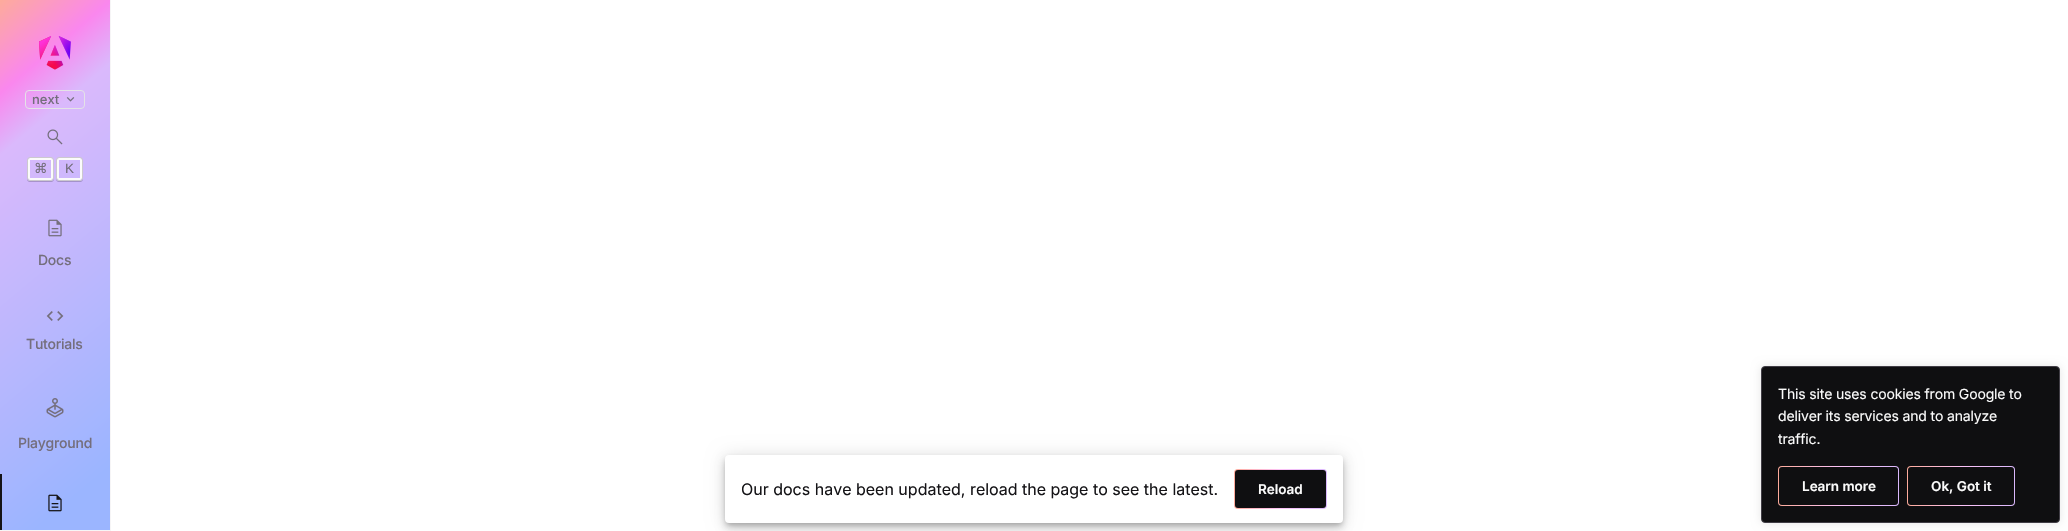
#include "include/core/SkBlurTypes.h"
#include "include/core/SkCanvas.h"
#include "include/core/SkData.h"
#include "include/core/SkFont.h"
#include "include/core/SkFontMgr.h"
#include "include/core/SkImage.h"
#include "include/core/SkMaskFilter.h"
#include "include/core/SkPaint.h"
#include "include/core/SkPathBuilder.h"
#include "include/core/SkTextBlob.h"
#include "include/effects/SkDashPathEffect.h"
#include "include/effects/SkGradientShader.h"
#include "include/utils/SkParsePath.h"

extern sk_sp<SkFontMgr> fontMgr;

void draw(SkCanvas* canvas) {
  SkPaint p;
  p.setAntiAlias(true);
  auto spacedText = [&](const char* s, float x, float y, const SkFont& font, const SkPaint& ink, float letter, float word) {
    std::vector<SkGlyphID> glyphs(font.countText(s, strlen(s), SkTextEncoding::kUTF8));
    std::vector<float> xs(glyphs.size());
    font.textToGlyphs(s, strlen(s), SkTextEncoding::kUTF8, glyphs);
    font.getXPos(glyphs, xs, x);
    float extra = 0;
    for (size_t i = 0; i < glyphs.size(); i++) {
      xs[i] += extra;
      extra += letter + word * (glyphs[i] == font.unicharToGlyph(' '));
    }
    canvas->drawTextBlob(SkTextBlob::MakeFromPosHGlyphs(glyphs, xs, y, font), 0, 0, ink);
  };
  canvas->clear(SK_ColorWHITE);
  {
    const SkColor colors[] = {SkColorSetRGB(253, 171, 155), SkColorSetRGB(250, 135, 238), SkColorSetRGB(218, 185, 252), SkColorSetRGB(155, 181, 255)};
    const float stops[] = {0, 0.15f, 0.25f, 0.9f};
    const SkPoint ends[] = {{-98, 82}, {208, 448}};
    p.setShader(SkGradientShader::MakeLinear(ends, colors, stops, 4, SkTileMode::kClamp));
    p.setAlpha(255);
  }
  canvas->drawRect(SkRect::MakeLTRB(0, 0, 110, 530), p);
  p.setShader(nullptr);
  p.setColor(SkColorSetRGB(246, 245, 246));
  canvas->drawRect(SkRect::MakeLTRB(110, 0, 111, 531), p);
  canvas->drawRect(SkRect::MakeLTRB(0, 530, 111, 531), p);
  canvas->drawImageRect(SkImages::DeferredFromEncodedData(SkData::MakeFromFileName("images/1.png")), SkRect::MakeLTRB(39, 36, 71, 70), SkSamplingOptions());
  p.setStyle(SkPaint::kStroke_Style);
  p.setStrokeWidth(1);
  p.setColor(SkColorSetRGB(228, 227, 230));
  canvas->drawRoundRect(SkRect::MakeLTRB(25.5f, 90.5f, 84.5f, 108.5f), 3.5f, 3.5f, p);
  canvas->drawImageRect(SkImages::DeferredFromEncodedData(SkData::MakeFromFileName("images/2.png")), SkRect::MakeLTRB(66, 97, 75, 102), SkSamplingOptions());
  canvas->drawImageRect(SkImages::DeferredFromEncodedData(SkData::MakeFromFileName("images/3.png")), SkRect::MakeLTRB(47, 129, 63, 145), SkSamplingOptions());
  p.setStyle(SkPaint::kFill_Style);
  p.setColor(SkColorSetARGB(51, 0, 0, 0));
  canvas->drawPath(SkPathBuilder().moveTo(27, 178).cubicTo(27, 182.5f, 29.5f, 182, 33.5f, 182).lineTo(47.5f, 182).cubicTo(51.5f, 182, 54, 182.5f, 54, 178).cubicTo(54, 179.5f, 52.5f, 181, 51, 181).lineTo(30, 181).cubicTo(28.5f, 181, 27, 179.5f, 27, 178).close().detach(), p);
  p.setStyle(SkPaint::kStroke_Style);
  p.setStrokeWidth(2);
  p.setColor(SkColorSetRGB(251, 251, 251));
  canvas->drawRoundRect(SkRect::MakeLTRB(29, 159, 52, 179), 1, 1, p);
  p.setStrokeWidth(1);
  p.setColor(SkColorSetRGB(204, 201, 207));
  canvas->drawRoundRect(SkRect::MakeLTRB(27.5f, 157.5f, 53.5f, 180.5f), 2.5f, 2.5f, p);
  p.setStyle(SkPaint::kFill_Style);
  p.setColor(SkColorSetARGB(51, 0, 0, 0));
  canvas->drawPath(SkPathBuilder().moveTo(56, 178).cubicTo(56, 182.5f, 58.5f, 182, 62.5f, 182).lineTo(76.5f, 182).cubicTo(80.5f, 182, 83, 182.5f, 83, 178).cubicTo(83, 179.5f, 81.5f, 181, 80, 181).lineTo(59, 181).cubicTo(57.5f, 181, 56, 179.5f, 56, 178).close().detach(), p);
  p.setStyle(SkPaint::kStroke_Style);
  p.setStrokeWidth(2);
  p.setColor(SkColorSetRGB(251, 251, 251));
  canvas->drawRoundRect(SkRect::MakeLTRB(58, 159, 81, 179), 1, 1, p);
  p.setStrokeWidth(1);
  p.setColor(SkColorSetRGB(204, 201, 207));
  canvas->drawRoundRect(SkRect::MakeLTRB(56.5f, 157.5f, 82.5f, 180.5f), 2.5f, 2.5f, p);
  canvas->drawImageRect(SkImages::DeferredFromEncodedData(SkData::MakeFromFileName("images/4.png")), SkRect::MakeLTRB(48, 219, 62, 237), SkSamplingOptions());
  canvas->drawImageRect(SkImages::DeferredFromEncodedData(SkData::MakeFromFileName("images/5.png")), SkRect::MakeLTRB(46, 311, 64, 321), SkSamplingOptions());
  canvas->drawImageRect(SkImages::DeferredFromEncodedData(SkData::MakeFromFileName("images/6.png")), SkRect::MakeLTRB(46, 398, 64, 418), SkSamplingOptions());
  p.setStyle(SkPaint::kFill_Style);
  p.setColor(SkColorSetRGB(21, 20, 23));
  canvas->drawRect(SkRect::MakeLTRB(0, 474, 2, 530), p);
  canvas->drawImageRect(SkImages::DeferredFromEncodedData(SkData::MakeFromFileName("images/7.png")), SkRect::MakeLTRB(48, 494, 62, 512), SkSamplingOptions());
  p.setColor(SkColorSetARGB(26, 0, 0, 0));
  p.setMaskFilter(SkMaskFilter::MakeBlur(kNormal_SkBlurStyle, 5));
  canvas->drawRoundRect(SkRect::MakeLTRB(1761, 366, 2060, 523), 4, 4, p);
  p.setMaskFilter(nullptr);
  p.setColor(SkColorSetRGB(15, 15, 17));
  canvas->drawRoundRect(SkRect::MakeLTRB(1761.5f, 366.5f, 2059.5f, 522.5f), 3.5f, 3.5f, p);
  p.setStyle(SkPaint::kStroke_Style);
  p.setColor(SkColorSetRGB(65, 62, 70));
  canvas->drawRoundRect(SkRect::MakeLTRB(1761.5f, 366.5f, 2059.5f, 522.5f), 3.5f, 3.5f, p);
  p.setStyle(SkPaint::kFill_Style);
  {
    const SkColor colors[] = {SkColorSetRGB(253, 171, 155), SkColorSetRGB(252, 195, 247), SkColorSetRGB(218, 184, 252)};
    const float stops[] = {0, 0.5f, 1};
    const SkPoint ends[] = {{1778, 486}, {1899, 486}};
    p.setShader(SkGradientShader::MakeLinear(ends, colors, stops, 3, SkTileMode::kClamp));
    p.setAlpha(255);
  }
  canvas->drawRoundRect(SkRect::MakeLTRB(1778, 466, 1899, 506), 4, 4, p);
  p.setShader(nullptr);
  p.setColor(SkColorSetRGB(15, 15, 17));
  canvas->drawRoundRect(SkRect::MakeLTRB(1779, 467, 1898, 505), 3, 3, p);
  {
    const SkColor colors[] = {SkColorSetRGB(253, 171, 155), SkColorSetRGB(252, 195, 247), SkColorSetRGB(218, 184, 252)};
    const float stops[] = {0, 0.5f, 1};
    const SkPoint ends[] = {{1907, 486}, {2015, 486}};
    p.setShader(SkGradientShader::MakeLinear(ends, colors, stops, 3, SkTileMode::kClamp));
    p.setAlpha(255);
  }
  canvas->drawRoundRect(SkRect::MakeLTRB(1907, 466, 2015, 506), 4, 4, p);
  p.setShader(nullptr);
  p.setColor(SkColorSetRGB(15, 15, 17));
  canvas->drawRoundRect(SkRect::MakeLTRB(1908, 467, 2014, 505), 3, 3, p);
  p.setColor(SkColorSetARGB(31, 0, 0, 0));
  p.setMaskFilter(SkMaskFilter::MakeBlur(kNormal_SkBlurStyle, 9));
  canvas->drawRoundRect(SkRect::MakeLTRB(725, 456, 1343, 524), 4, 4, p);
  p.setMaskFilter(nullptr);
  p.setColor(SkColorSetARGB(36, 0, 0, 0));
  p.setMaskFilter(SkMaskFilter::MakeBlur(kNormal_SkBlurStyle, 5));
  canvas->drawRoundRect(SkRect::MakeLTRB(725, 461, 1343, 529), 4, 4, p);
  p.setMaskFilter(nullptr);
  p.setColor(SkColorSetARGB(51, 0, 0, 0));
  p.setMaskFilter(SkMaskFilter::MakeBlur(kNormal_SkBlurStyle, 2.5f));
  canvas->drawRoundRect(SkRect::MakeLTRB(726, 459, 1342, 525), 3, 3, p);
  p.setMaskFilter(nullptr);
  p.setColor(SK_ColorWHITE);
  canvas->drawRoundRect(SkRect::MakeLTRB(725, 455, 1343, 523), 4, 4, p);
  {
    const SkColor colors[] = {SkColorSetRGB(253, 171, 155), SkColorSetRGB(252, 195, 247), SkColorSetRGB(218, 184, 252)};
    const float stops[] = {0, 0.5f, 1};
    const SkPoint ends[] = {{1234, 489}, {1327, 489}};
    p.setShader(SkGradientShader::MakeLinear(ends, colors, stops, 3, SkTileMode::kClamp));
    p.setAlpha(255);
  }
  canvas->drawRoundRect(SkRect::MakeLTRB(1234, 469, 1327, 509), 4, 4, p);
  p.setShader(nullptr);
  p.setColor(SkColorSetRGB(15, 15, 17));
  canvas->drawRoundRect(SkRect::MakeLTRB(1235, 470, 1326, 508), 3, 3, p);
  SkFont font1(fontMgr->matchFamilyStyle("Inter", SkFontStyle(500, SkFontStyle::kNormal_Width, SkFontStyle::kUpright_Slant)), 13);
  font1.setSubpixel(true);
  p.setColor(SkColorSetRGB(116, 110, 124));
  canvas->drawString("next", 32, 104, font1, p);
  SkFont font2(fontMgr->matchFamilyStyle("DejaVu Sans", SkFontStyle::Normal()), 13.5f);
  font2.setSubpixel(true);
  canvas->drawString("⌘", 34, 173, font2, p);
  SkFont font3(fontMgr->matchFamilyStyle("Liberation Sans", SkFontStyle::Normal()), 13.5f);
  font3.setSubpixel(true);
  canvas->drawString("K", 65, 173, font3, p);
  SkFont font4(fontMgr->matchFamilyStyle("Inter", SkFontStyle(500, SkFontStyle::kNormal_Width, SkFontStyle::kUpright_Slant)), 14);
  font4.setSubpixel(true);
  spacedText("Docs", 38, 265, font4, p, -0.25f, 0);
  spacedText("Tutorials", 26, 349, font4, p, -0.25f, 0);
  spacedText("Playground", 18, 448, font4, p, -0.25f, 0);
  SkFont font5(fontMgr->matchFamilyStyle("Inter", SkFontStyle::Normal()), 14);
  font5.setSubpixel(true);
  p.setColor(SkColorSetRGB(251, 251, 251));
  spacedText("This site uses cookies from Google to", 1778, 399, font5, p, -0.15f, 0);
  spacedText("deliver its services and to analyze", 1778, 421, font5, p, -0.15f, 0);
  spacedText("traffic.", 1778, 444, font5, p, -0.15f, 0);
  SkFont font6(fontMgr->matchFamilyStyle("Inter", SkFontStyle(600, SkFontStyle::kNormal_Width, SkFontStyle::kUpright_Slant)), 13.5f);
  font6.setSubpixel(true);
  canvas->drawString("Learn more", 1802, 491, font6, p);
  canvas->drawString("Ok, Got it", 1931, 491, font6, p);
  SkFont font7(fontMgr->matchFamilyStyle("Inter", SkFontStyle::Normal()), 16);
  font7.setSubpixel(true);
  p.setColor(SkColorSetRGB(21, 20, 23));
  canvas->drawString("Our docs have been updated, reload the page to see the latest.", 741, 495, font7, p);
  p.setColor(SkColorSetRGB(251, 251, 251));
  canvas->drawString("Reload", 1258, 494, font6, p);
}
